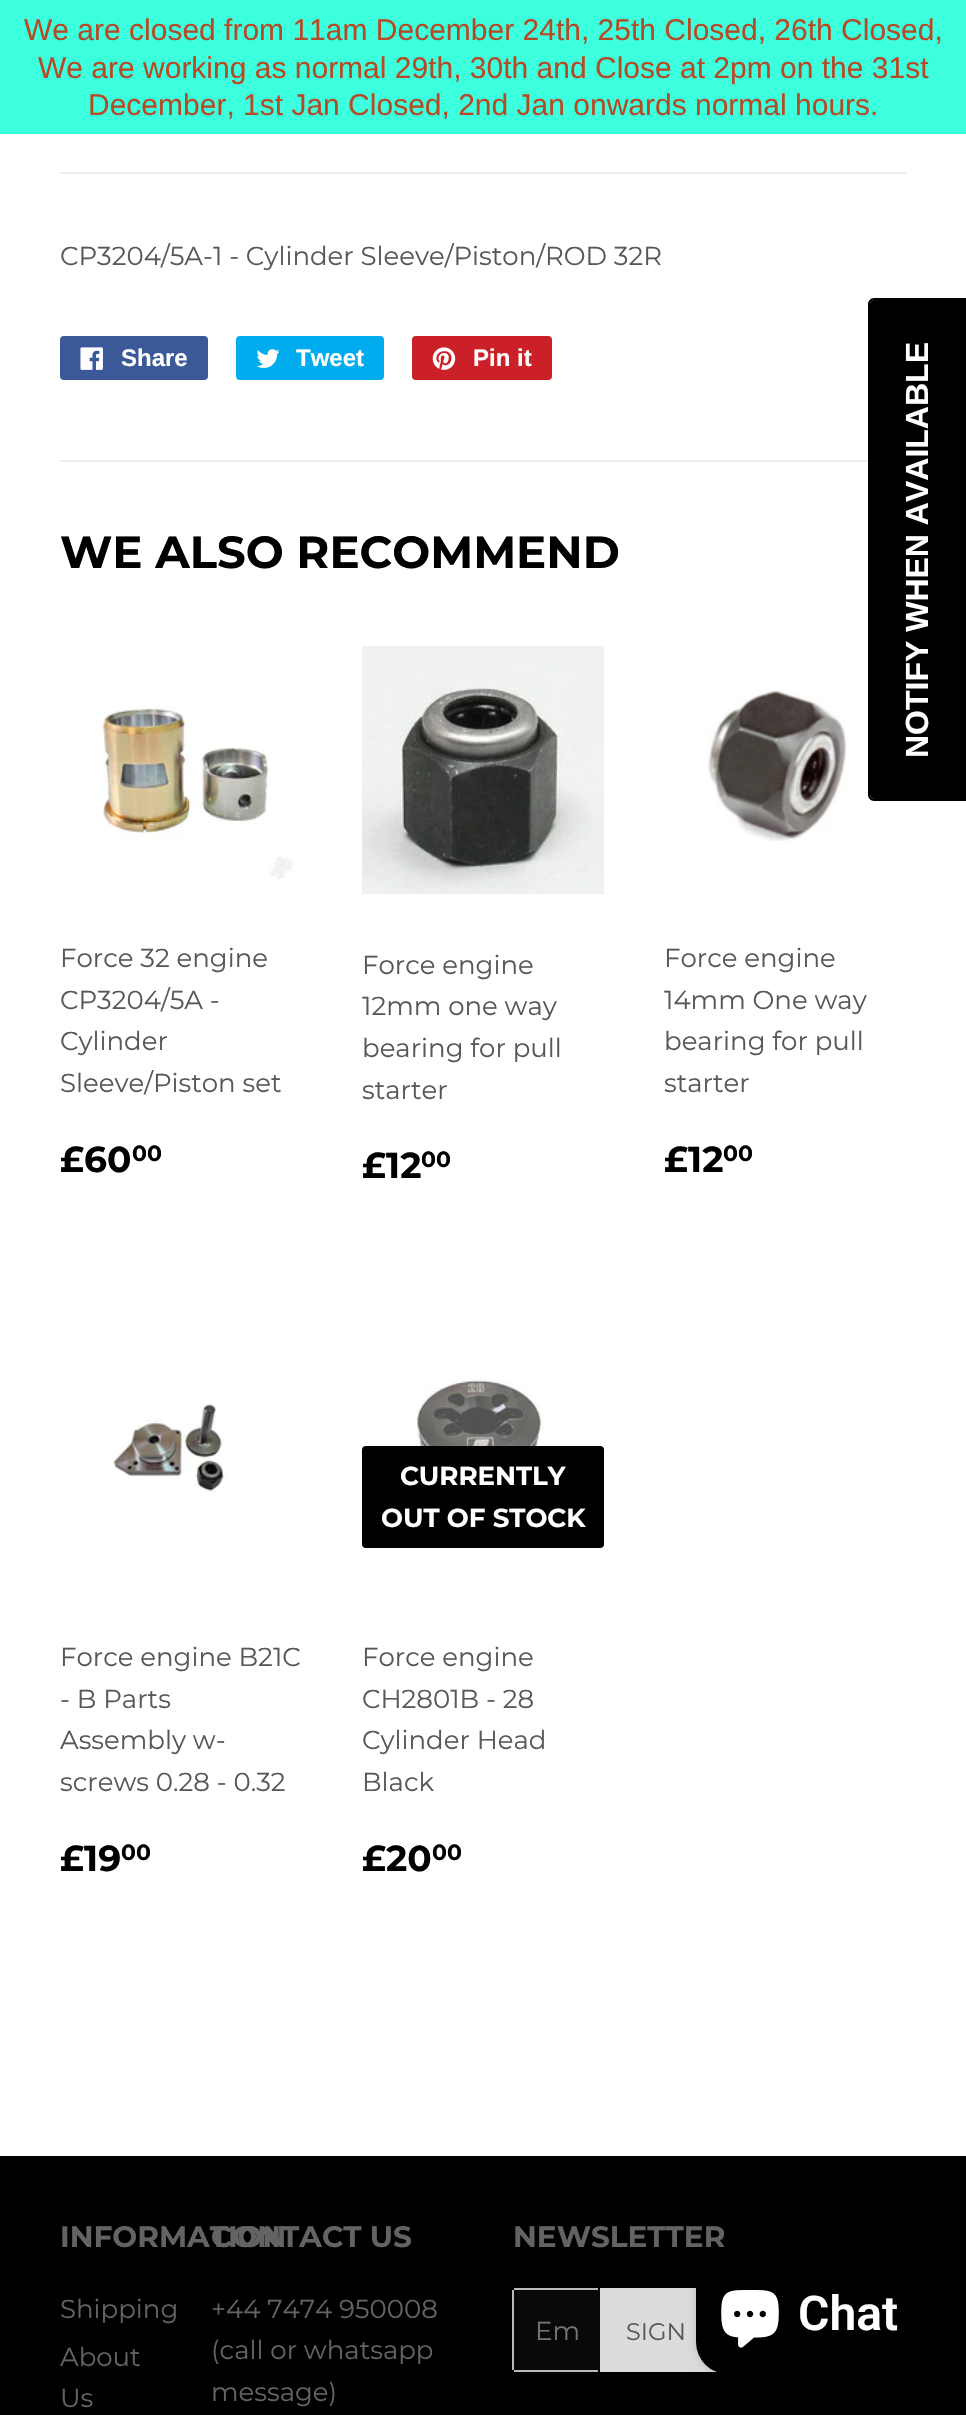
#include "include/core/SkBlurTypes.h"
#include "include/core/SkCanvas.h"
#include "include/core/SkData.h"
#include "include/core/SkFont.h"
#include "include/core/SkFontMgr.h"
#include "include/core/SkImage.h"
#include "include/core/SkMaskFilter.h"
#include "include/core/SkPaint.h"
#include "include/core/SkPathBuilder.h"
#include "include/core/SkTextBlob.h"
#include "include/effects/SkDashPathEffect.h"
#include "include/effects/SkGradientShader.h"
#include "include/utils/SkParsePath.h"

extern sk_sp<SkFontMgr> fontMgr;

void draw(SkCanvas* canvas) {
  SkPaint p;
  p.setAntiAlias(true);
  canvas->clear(SK_ColorWHITE);
  p.setColor(SkColorSetRGB(59, 255, 221));
  canvas->drawRect(SkRect::MakeLTRB(0, 0, 966, 134), p);
  p.setColor(SkColorSetRGB(236, 236, 236));
  canvas->drawRect(SkRect::MakeLTRB(60, 172, 906, 174), p);
  p.setColor(SkColorSetRGB(59, 89, 152));
  canvas->drawRoundRect(SkRect::MakeLTRB(60, 336, 208, 380), 4, 4, p);
  canvas->drawImageRect(SkImages::DeferredFromEncodedData(SkData::MakeFromFileName("images/1.png")), SkRect::MakeLTRB(80, 347, 103, 370), SkSamplingOptions());
  p.setColor(SkColorSetRGB(0, 172, 237));
  canvas->drawRoundRect(SkRect::MakeLTRB(236, 336, 384, 380), 4, 4, p);
  canvas->drawImageRect(SkImages::DeferredFromEncodedData(SkData::MakeFromFileName("images/2.png")), SkRect::MakeLTRB(256, 349, 280, 368), SkSamplingOptions());
  p.setColor(SkColorSetRGB(203, 32, 39));
  canvas->drawRoundRect(SkRect::MakeLTRB(412, 336, 552, 380), 4, 4, p);
  canvas->drawImageRect(SkImages::DeferredFromEncodedData(SkData::MakeFromFileName("images/3.png")), SkRect::MakeLTRB(432, 347, 456, 370), SkSamplingOptions());
  p.setColor(SkColorSetRGB(236, 236, 236));
  canvas->drawRect(SkRect::MakeLTRB(60, 460, 868, 462), p);
  canvas->drawImageRect(SkImages::DeferredFromEncodedData(SkData::MakeFromFileName("images/4.png")), SkRect::MakeLTRB(102, 705, 293, 879), SkSamplingOptions());
  canvas->drawImageRect(SkImages::DeferredFromEncodedData(SkData::MakeFromFileName("images/5.png")), SkRect::MakeLTRB(362, 646, 604, 894), SkSamplingOptions());
  canvas->drawImageRect(SkImages::DeferredFromEncodedData(SkData::MakeFromFileName("images/6.png")), SkRect::MakeLTRB(707, 690, 847, 841), SkSamplingOptions());
  canvas->drawImageRect(SkImages::DeferredFromEncodedData(SkData::MakeFromFileName("images/7.png")), SkRect::MakeLTRB(113, 1403, 227, 1494), SkSamplingOptions());
  canvas->drawImageRect(SkImages::DeferredFromEncodedData(SkData::MakeFromFileName("images/8.png")), SkRect::MakeLTRB(416, 1378, 544, 1446), SkSamplingOptions());
  p.setColor(SK_ColorBLACK);
  canvas->drawRoundRect(SkRect::MakeLTRB(362, 1446, 604, 1548), 4, 4, p);
  canvas->drawPath(SkPathBuilder().moveTo(870, 795).lineTo(870, 304).cubicTo(870, 302, 872, 300, 874, 300).lineTo(966, 300).lineTo(966, 799).lineTo(874, 799).cubicTo(872, 799, 870, 797, 870, 795).close().detach(), p);
  canvas->drawPath(SkPathBuilder(SkPathFillType::kEvenOdd).moveTo(868, 795).lineTo(868, 304).cubicTo(868, 301, 871, 298, 874, 298).lineTo(966, 298).lineTo(966, 801).lineTo(874, 801).cubicTo(871, 801, 868, 798, 868, 795).close().moveTo(870, 795).lineTo(870, 304).cubicTo(870, 302, 872, 300, 874, 300).lineTo(966, 300).lineTo(966, 799).lineTo(874, 799).cubicTo(872, 799, 870, 797, 870, 795).close().detach(), p);
  canvas->drawRect(SkRect::MakeLTRB(0, 2156, 966, 2415), p);
  p.setColor(SkColorSetRGB(9, 9, 9));
  canvas->drawRoundRect(SkRect::MakeLTRB(512, 2288, 600, 2372), 4, 4, p);
  p.setColor(SkColorSetRGB(185, 185, 185));
  canvas->drawRect(SkRect::MakeLTRB(514, 2288, 598, 2290), p);
  canvas->drawRect(SkRect::MakeLTRB(514, 2370, 598, 2372), p);
  canvas->drawRect(SkRect::MakeLTRB(512, 2290, 514, 2370), p);
  p.setColor(SkColorSetRGB(220, 220, 220));
  canvas->drawRect(SkRect::MakeLTRB(600, 2288, 717, 2372), p);
  p.setColor(SkColorSetARGB(38, 0, 0, 0));
  p.setMaskFilter(SkMaskFilter::MakeBlur(kNormal_SkBlurStyle, 5));
  canvas->drawRoundRect(SkRect::MakeLTRB(696, 2254, 922, 2374), 32, 32, p);
  p.setMaskFilter(nullptr);
  p.setColor(SK_ColorBLACK);
  canvas->drawRoundRect(SkRect::MakeLTRB(696, 2254, 922, 2374), 32, 32, p);
  canvas->drawImageRect(SkImages::DeferredFromEncodedData(SkData::MakeFromFileName("images/9.png")), SkRect::MakeLTRB(721, 2290, 779, 2348), SkSamplingOptions());
  SkFont font1(fontMgr->matchFamilyStyle("Liberation Sans", SkFontStyle::Normal()), 30);
  font1.setSubpixel(true);
  p.setColor(SkColorSetRGB(182, 73, 38));
  canvas->drawString("We are closed from 11am December 24th, 25th Closed, 26th Closed,", 24, 40, font1, p);
  canvas->drawString("We are working as normal 29th, 30th and Close at 2pm on the 31st", 38, 78, font1, p);
  canvas->drawString("December, 1st Jan Closed, 2nd Jan onwards normal hours.", 88, 115, font1, p);
  SkFont font2(fontMgr->matchFamilyStyle("Montserrat", SkFontStyle::Normal()), 26);
  font2.setSubpixel(true);
  p.setColor(SkColorSetRGB(88, 88, 88));
  canvas->drawString("CP3204/5A-1 - Cylinder Sleeve/Piston/ROD 32R", 60, 265, font2, p);
  SkFont font3(fontMgr->matchFamilyStyle("Liberation Sans", SkFontStyle::Bold()), 24);
  font3.setSubpixel(true);
  p.setColor(SK_ColorWHITE);
  canvas->drawString("Share", 121, 366, font3, p);
  canvas->drawString("Tweet", 296, 366, font3, p);
  canvas->drawString("Pin it", 473, 366, font3, p);
  SkFont font4(fontMgr->matchFamilyStyle("Montserrat", SkFontStyle::Bold()), 45);
  font4.setSubpixel(true);
  p.setColor(SK_ColorBLACK);
  canvas->drawString("WE ALSO RECOMMEND", 60, 568, font4, p);
  p.setColor(SkColorSetRGB(88, 88, 88));
  canvas->drawString("Force 32 engine", 60, 967, font2, p);
  canvas->drawString("CP3204/5A -", 60, 1009, font2, p);
  canvas->drawString("Cylinder", 60, 1050, font2, p);
  canvas->drawString("Sleeve/Piston set", 60, 1092, font2, p);
  SkFont font5(fontMgr->matchFamilyStyle("Montserrat", SkFontStyle::Bold()), 36);
  font5.setSubpixel(true);
  p.setColor(SK_ColorBLACK);
  canvas->drawString("£60", 60, 1172, font5, p);
  SkFont font6(fontMgr->matchFamilyStyle("Montserrat", SkFontStyle::Bold()), 22);
  font6.setSubpixel(true);
  canvas->drawString("00", 132, 1161, font6, p);
  p.setColor(SkColorSetRGB(88, 88, 88));
  canvas->drawString("Force engine", 362, 974, font2, p);
  canvas->drawString("12mm one way", 362, 1015, font2, p);
  canvas->drawString("bearing for pull", 362, 1057, font2, p);
  canvas->drawString("starter", 362, 1099, font2, p);
  p.setColor(SK_ColorBLACK);
  canvas->drawString("£12", 362, 1178, font5, p);
  canvas->drawString("00", 421, 1167, font6, p);
  p.setColor(SkColorSetRGB(88, 88, 88));
  canvas->drawString("Force engine", 664, 967, font2, p);
  canvas->drawString("14mm One way", 664, 1009, font2, p);
  canvas->drawString("bearing for pull", 664, 1050, font2, p);
  canvas->drawString("starter", 664, 1092, font2, p);
  p.setColor(SK_ColorBLACK);
  canvas->drawString("£12", 664, 1172, font5, p);
  canvas->drawString("00", 723, 1161, font6, p);
  p.setColor(SkColorSetRGB(88, 88, 88));
  canvas->drawString("Force engine B21C", 60, 1666, font2, p);
  canvas->drawString("- B Parts", 60, 1708, font2, p);
  canvas->drawString("Assembly w-", 60, 1749, font2, p);
  canvas->drawString("screws 0.28 - 0.32", 60, 1791, font2, p);
  p.setColor(SK_ColorBLACK);
  canvas->drawString("£19", 60, 1871, font5, p);
  canvas->drawString("00", 121, 1860, font6, p);
  SkFont font7(fontMgr->matchFamilyStyle("Montserrat", SkFontStyle::Bold()), 26);
  font7.setSubpixel(true);
  p.setColor(SK_ColorWHITE);
  canvas->drawString("CURRENTLY", 400, 1485, font7, p);
  canvas->drawString("OUT OF STOCK", 381, 1527, font7, p);
  p.setColor(SkColorSetRGB(88, 88, 88));
  canvas->drawString("Force engine", 362, 1666, font2, p);
  canvas->drawString("CH2801B - 28", 362, 1708, font2, p);
  canvas->drawString("Cylinder Head", 362, 1749, font2, p);
  canvas->drawString("Black", 362, 1791, font2, p);
  p.setColor(SK_ColorBLACK);
  canvas->drawString("£20", 362, 1871, font5, p);
  canvas->drawString("00", 432, 1860, font6, p);
  SkFont font8(fontMgr->matchFamilyStyle("Liberation Sans", SkFontStyle::Bold()), 32);
  font8.setSubpixel(true);
  p.setColor(SK_ColorWHITE);
  canvas->save();
  canvas->rotate(-90, 928, 758);
  canvas->drawString("NOTIFY WHEN AVAILABLE", 928, 758, font8, p);
  canvas->restore();
  SkFont font9(fontMgr->matchFamilyStyle("Montserrat", SkFontStyle::Bold()), 29.5f);
  font9.setSubpixel(true);
  p.setColor(SkColorSetRGB(99, 99, 99));
  canvas->drawString("INFORMATION", 60, 2247, font9, p);
  canvas->drawString("Shipping", 60, 2318, font2, p);
  canvas->drawString("About", 60, 2366, font2, p);
  canvas->drawString("Us", 60, 2407, font2, p);
  canvas->drawString("CONTACT US", 211, 2247, font9, p);
  canvas->drawString("+44 7474 950008", 211, 2318, font2, p);
  canvas->drawString("(call or whatsapp", 211, 2359, font2, p);
  canvas->drawString("message)", 211, 2401, font2, p);
  canvas->drawString("NEWSLETTER", 513, 2247, font9, p);
  p.setColor(SkColorSetRGB(117, 117, 117));
  canvas->drawString("Em", 535, 2340, font2, p);
  SkFont font10(fontMgr->matchFamilyStyle("Montserrat", SkFontStyle::Normal()), 24);
  font10.setSubpixel(true);
  p.setColor(SkColorSetRGB(88, 88, 88));
  canvas->drawString("SIGN", 626, 2340, font10, p);
  SkFont font11(fontMgr->matchFamilyStyle("Roboto", SkFontStyle(600, SkFontStyle::kNormal_Width, SkFontStyle::kUpright_Slant)), 48);
  font11.setSubpixel(true);
  p.setColor(SK_ColorWHITE);
  canvas->drawString("Chat", 798, 2330, font11, p);
}
